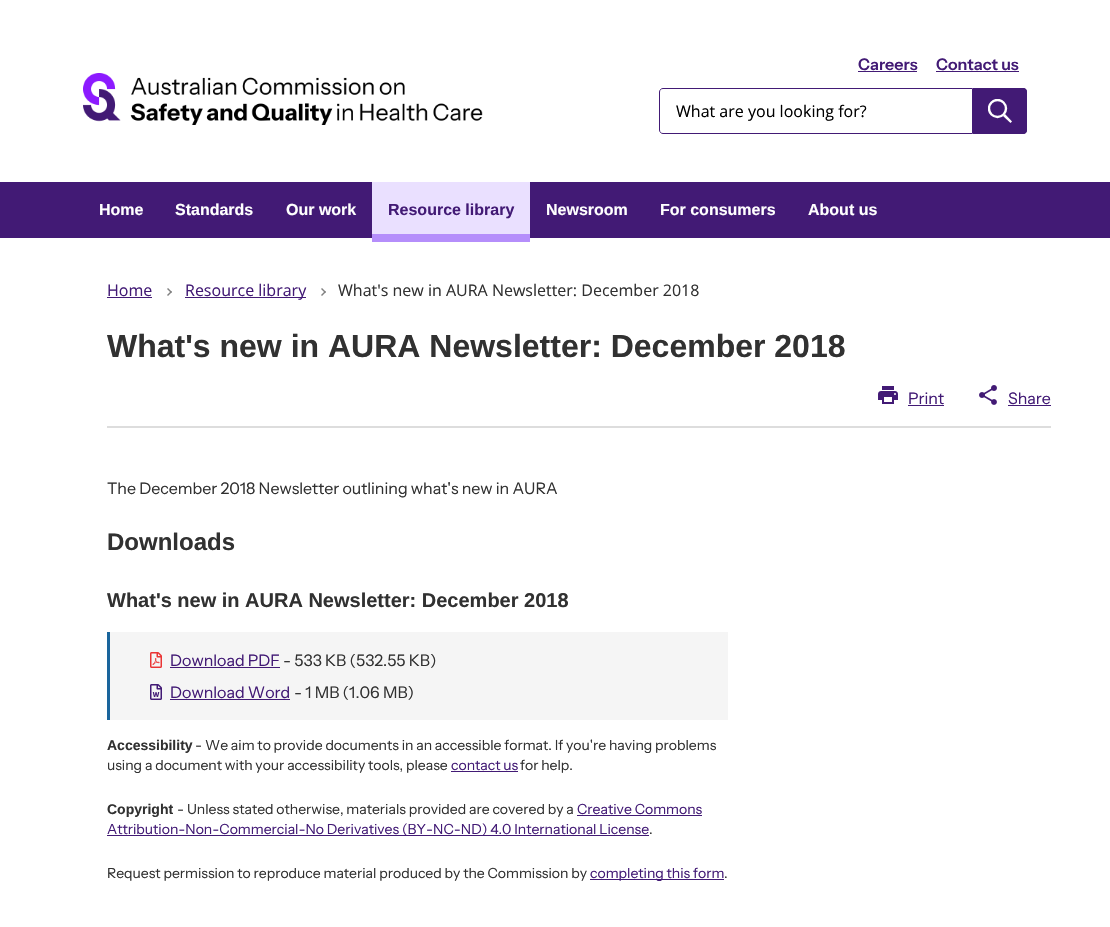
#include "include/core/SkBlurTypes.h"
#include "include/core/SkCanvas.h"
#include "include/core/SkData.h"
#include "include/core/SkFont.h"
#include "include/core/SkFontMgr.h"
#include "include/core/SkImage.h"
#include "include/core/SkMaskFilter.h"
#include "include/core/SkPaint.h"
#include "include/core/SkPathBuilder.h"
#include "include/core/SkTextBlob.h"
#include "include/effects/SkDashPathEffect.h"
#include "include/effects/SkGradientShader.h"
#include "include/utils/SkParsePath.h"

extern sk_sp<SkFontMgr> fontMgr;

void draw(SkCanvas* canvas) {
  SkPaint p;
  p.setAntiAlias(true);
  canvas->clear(SK_ColorWHITE);
  canvas->drawImageRect(SkImages::DeferredFromEncodedData(SkData::MakeFromFileName("images/1.png")), SkRect::MakeLTRB(83, 73, 483, 125), SkSamplingOptions());
  p.setColor(SkColorSetRGB(66, 26, 117));
  canvas->drawRect(SkRect::MakeLTRB(858, 71, 917, 72), p);
  canvas->drawRect(SkRect::MakeLTRB(936, 71, 1019, 72), p);
  p.setStyle(SkPaint::kStroke_Style);
  p.setStrokeWidth(1);
  canvas->drawPath(SkPathBuilder().moveTo(663, 88.5f).lineTo(972.5f, 88.5f).lineTo(972.5f, 133.5f).lineTo(663, 133.5f).cubicTo(661, 133.5f, 659.5f, 132, 659.5f, 130).lineTo(659.5f, 92).cubicTo(659.5f, 90, 661, 88.5f, 663, 88.5f).close().detach(), p);
  p.setStyle(SkPaint::kFill_Style);
  canvas->drawPath(SkPathBuilder().moveTo(973, 88).lineTo(1023, 88).cubicTo(1025, 88, 1027, 90, 1027, 92).lineTo(1027, 130).cubicTo(1027, 132, 1025, 134, 1023, 134).lineTo(973, 134).close().detach(), p);
  canvas->save();
  canvas->clipRect(SkRect::MakeLTRB(988, 99, 1012, 123));
  p.setStyle(SkPaint::kStroke_Style);
  p.setStrokeWidth(2.4f);
  p.setColor(SK_ColorWHITE);
  canvas->drawCircle(997.5f, 108.5f, 8.5f, p);
  canvas->restore();
  p.setStyle(SkPaint::kFill_Style);
  canvas->drawPath(SkPathBuilder().moveTo(1005, 114).lineTo(1012, 121.5f).lineTo(1010.5f, 123).lineTo(1003, 116).close().detach(), p);
  p.setStyle(SkPaint::kStroke_Style);
  p.setStrokeWidth(3);
  p.setColor(SkColorSetRGB(66, 26, 117));
  canvas->drawPath(SkPathBuilder().moveTo(974.5f, 89.5f).lineTo(1023, 89.5f).cubicTo(1024.5f, 89.5f, 1025.5f, 90.5f, 1025.5f, 92).lineTo(1025.5f, 130).cubicTo(1025.5f, 131.5f, 1024.5f, 132.5f, 1023, 132.5f).lineTo(974.5f, 132.5f).close().detach(), p);
  p.setStyle(SkPaint::kFill_Style);
  canvas->drawRect(SkRect::MakeLTRB(0, 182, 1110, 238), p);
  p.setColor(SkColorSetRGB(234, 224, 255));
  canvas->drawRect(SkRect::MakeLTRB(372, 182, 530, 234), p);
  p.setColor(SkColorSetRGB(181, 142, 251));
  canvas->drawRect(SkRect::MakeLTRB(372, 234, 530, 242), p);
  p.setColor(SkColorSetRGB(221, 221, 221));
  canvas->drawRect(SkRect::MakeLTRB(107, 426, 1051, 428), p);
  p.setColor(SkColorSetRGB(66, 26, 117));
  canvas->drawRect(SkRect::MakeLTRB(107, 297, 152, 298), p);
  canvas->drawImageRect(SkImages::DeferredFromEncodedData(SkData::MakeFromFileName("images/2.png")), SkRect::MakeLTRB(167, 288, 172, 296), SkSamplingOptions());
  canvas->drawRect(SkRect::MakeLTRB(185, 297, 306, 298), p);
  canvas->drawImageRect(SkImages::DeferredFromEncodedData(SkData::MakeFromFileName("images/2.png")), SkRect::MakeLTRB(321, 288, 326, 296), SkSamplingOptions());
  canvas->drawImageRect(SkImages::DeferredFromEncodedData(SkData::MakeFromFileName("images/3.png")), SkRect::MakeLTRB(878, 386, 898, 404), SkSamplingOptions());
  canvas->drawRect(SkRect::MakeLTRB(908, 405, 944, 406), p);
  canvas->drawImageRect(SkImages::DeferredFromEncodedData(SkData::MakeFromFileName("images/4.png")), SkRect::MakeLTRB(979, 385, 997, 405), SkSamplingOptions());
  canvas->drawRect(SkRect::MakeLTRB(1008, 405, 1051, 406), p);
  p.setColor(SkColorSetRGB(245, 245, 245));
  canvas->drawRect(SkRect::MakeLTRB(110, 632, 728, 720), p);
  p.setColor(SkColorSetRGB(26, 101, 156));
  canvas->drawRect(SkRect::MakeLTRB(107, 632, 110, 720), p);
  canvas->drawImageRect(SkImages::DeferredFromEncodedData(SkData::MakeFromFileName("images/5.png")), SkRect::MakeLTRB(150, 652, 162, 668), SkSamplingOptions());
  p.setColor(SkColorSetRGB(66, 26, 117));
  canvas->drawRect(SkRect::MakeLTRB(170, 667, 280, 668), p);
  canvas->drawImageRect(SkImages::DeferredFromEncodedData(SkData::MakeFromFileName("images/6.png")), SkRect::MakeLTRB(150, 684, 162, 700), SkSamplingOptions());
  canvas->drawRect(SkRect::MakeLTRB(170, 699, 290, 700), p);
  canvas->drawRect(SkRect::MakeLTRB(451, 771, 518, 772), p);
  canvas->drawRect(SkRect::MakeLTRB(577, 815, 702, 816), p);
  canvas->drawRect(SkRect::MakeLTRB(107, 835, 649, 836), p);
  canvas->drawRect(SkRect::MakeLTRB(590, 879, 724, 880), p);
  SkFont font1(fontMgr->matchFamilyStyle("Instrument Sans", SkFontStyle(600, SkFontStyle::kNormal_Width, SkFontStyle::kUpright_Slant)), 16);
  font1.setSubpixel(true);
  canvas->drawString("Careers", 858, 70, font1, p);
  canvas->drawString("Contact us", 936, 70, font1, p);
  SkFont font2(fontMgr->matchFamilyStyle("Open Sans", SkFontStyle::Normal()), 16);
  font2.setSubpixel(true);
  p.setColor(SK_ColorBLACK);
  canvas->drawString("What are you looking for?", 676, 117, font2, p);
  SkFont font3(fontMgr->matchFamilyStyle("Liberation Sans", SkFontStyle::Bold()), 16);
  font3.setSubpixel(true);
  p.setColor(SK_ColorWHITE);
  canvas->drawString("Home", 99, 215, font3, p);
  canvas->drawString("Standards", 175, 215, font3, p);
  canvas->drawString("Our work", 286, 215, font3, p);
  p.setColor(SkColorSetRGB(66, 26, 117));
  canvas->drawString("Resource library", 388, 215, font3, p);
  p.setColor(SK_ColorWHITE);
  canvas->drawString("Newsroom", 546, 215, font3, p);
  canvas->drawString("For consumers", 660, 215, font3, p);
  canvas->drawString("About us", 808, 215, font3, p);
  p.setColor(SkColorSetRGB(66, 26, 117));
  canvas->drawString("Home", 107, 296, font2, p);
  canvas->drawString("Resource library", 185, 296, font2, p);
  p.setColor(SkColorSetRGB(49, 49, 49));
  canvas->drawString("What's new in AURA Newsletter: December 2018", 338, 296, font2, p);
  SkFont font4(fontMgr->matchFamilyStyle("Liberation Sans", SkFontStyle::Bold()), 32);
  font4.setSubpixel(true);
  canvas->drawString("What's new in AURA Newsletter: December 2018", 107, 357, font4, p);
  SkFont font5(fontMgr->matchFamilyStyle("Instrument Sans", SkFontStyle::Normal()), 16);
  font5.setSubpixel(true);
  p.setColor(SkColorSetRGB(66, 26, 117));
  canvas->drawString("Print", 908, 404, font5, p);
  canvas->drawString("Share", 1008, 404, font5, p);
  p.setColor(SkColorSetRGB(49, 49, 49));
  canvas->drawString("The December 2018 Newsletter outlining what's new in AURA", 107, 494, font5, p);
  SkFont font6(fontMgr->matchFamilyStyle("Liberation Sans", SkFontStyle::Bold()), 24);
  font6.setSubpixel(true);
  canvas->drawString("Downloads", 107, 550, font6, p);
  SkFont font7(fontMgr->matchFamilyStyle("Liberation Sans", SkFontStyle::Bold()), 20);
  font7.setSubpixel(true);
  canvas->drawString("What's new in AURA Newsletter: December 2018", 107, 607, font7, p);
  p.setColor(SkColorSetRGB(66, 26, 117));
  canvas->drawString("Download PDF", 170, 666, font5, p);
  p.setColor(SkColorSetRGB(49, 49, 49));
  canvas->drawString("- 533 KB (532.55 KB)", 283, 666, font5, p);
  p.setColor(SkColorSetRGB(66, 26, 117));
  canvas->drawString("Download Word", 170, 698, font5, p);
  p.setColor(SkColorSetRGB(49, 49, 49));
  canvas->drawString("- 1 MB (1.06 MB)", 294, 698, font5, p);
  SkFont font8(fontMgr->matchFamilyStyle("Liberation Sans", SkFontStyle::Bold()), 14);
  font8.setSubpixel(true);
  canvas->drawString("Accessibility", 107, 750, font8, p);
  SkFont font9(fontMgr->matchFamilyStyle("Instrument Sans", SkFontStyle::Normal()), 14);
  font9.setSubpixel(true);
  canvas->drawString("- We aim to provide documents in an accessible format. If you're having problems", 195, 750, font9, p);
  canvas->drawString("using a document with your accessibility tools, please", 107, 770, font9, p);
  p.setColor(SkColorSetRGB(66, 26, 117));
  canvas->drawString("contact us", 451, 770, font9, p);
  p.setColor(SkColorSetRGB(49, 49, 49));
  canvas->drawString("for help.", 520, 770, font9, p);
  canvas->drawString("Copyright", 107, 814, font8, p);
  canvas->drawString("- Unless stated otherwise, materials provided are covered by a", 177, 814, font9, p);
  p.setColor(SkColorSetRGB(66, 26, 117));
  canvas->drawString("Creative Commons", 577, 814, font9, p);
  canvas->drawString("Attribution-Non-Commercial-No Derivatives (BY-NC-ND) 4.0 International License", 107, 834, font9, p);
  p.setColor(SkColorSetRGB(49, 49, 49));
  canvas->drawString(".", 649, 834, font9, p);
  canvas->drawString("Request permission to reproduce material produced by the Commission by", 107, 878, font9, p);
  p.setColor(SkColorSetRGB(66, 26, 117));
  canvas->drawString("completing this form", 590, 878, font9, p);
  p.setColor(SkColorSetRGB(49, 49, 49));
  canvas->drawString(".", 724, 878, font9, p);
}
